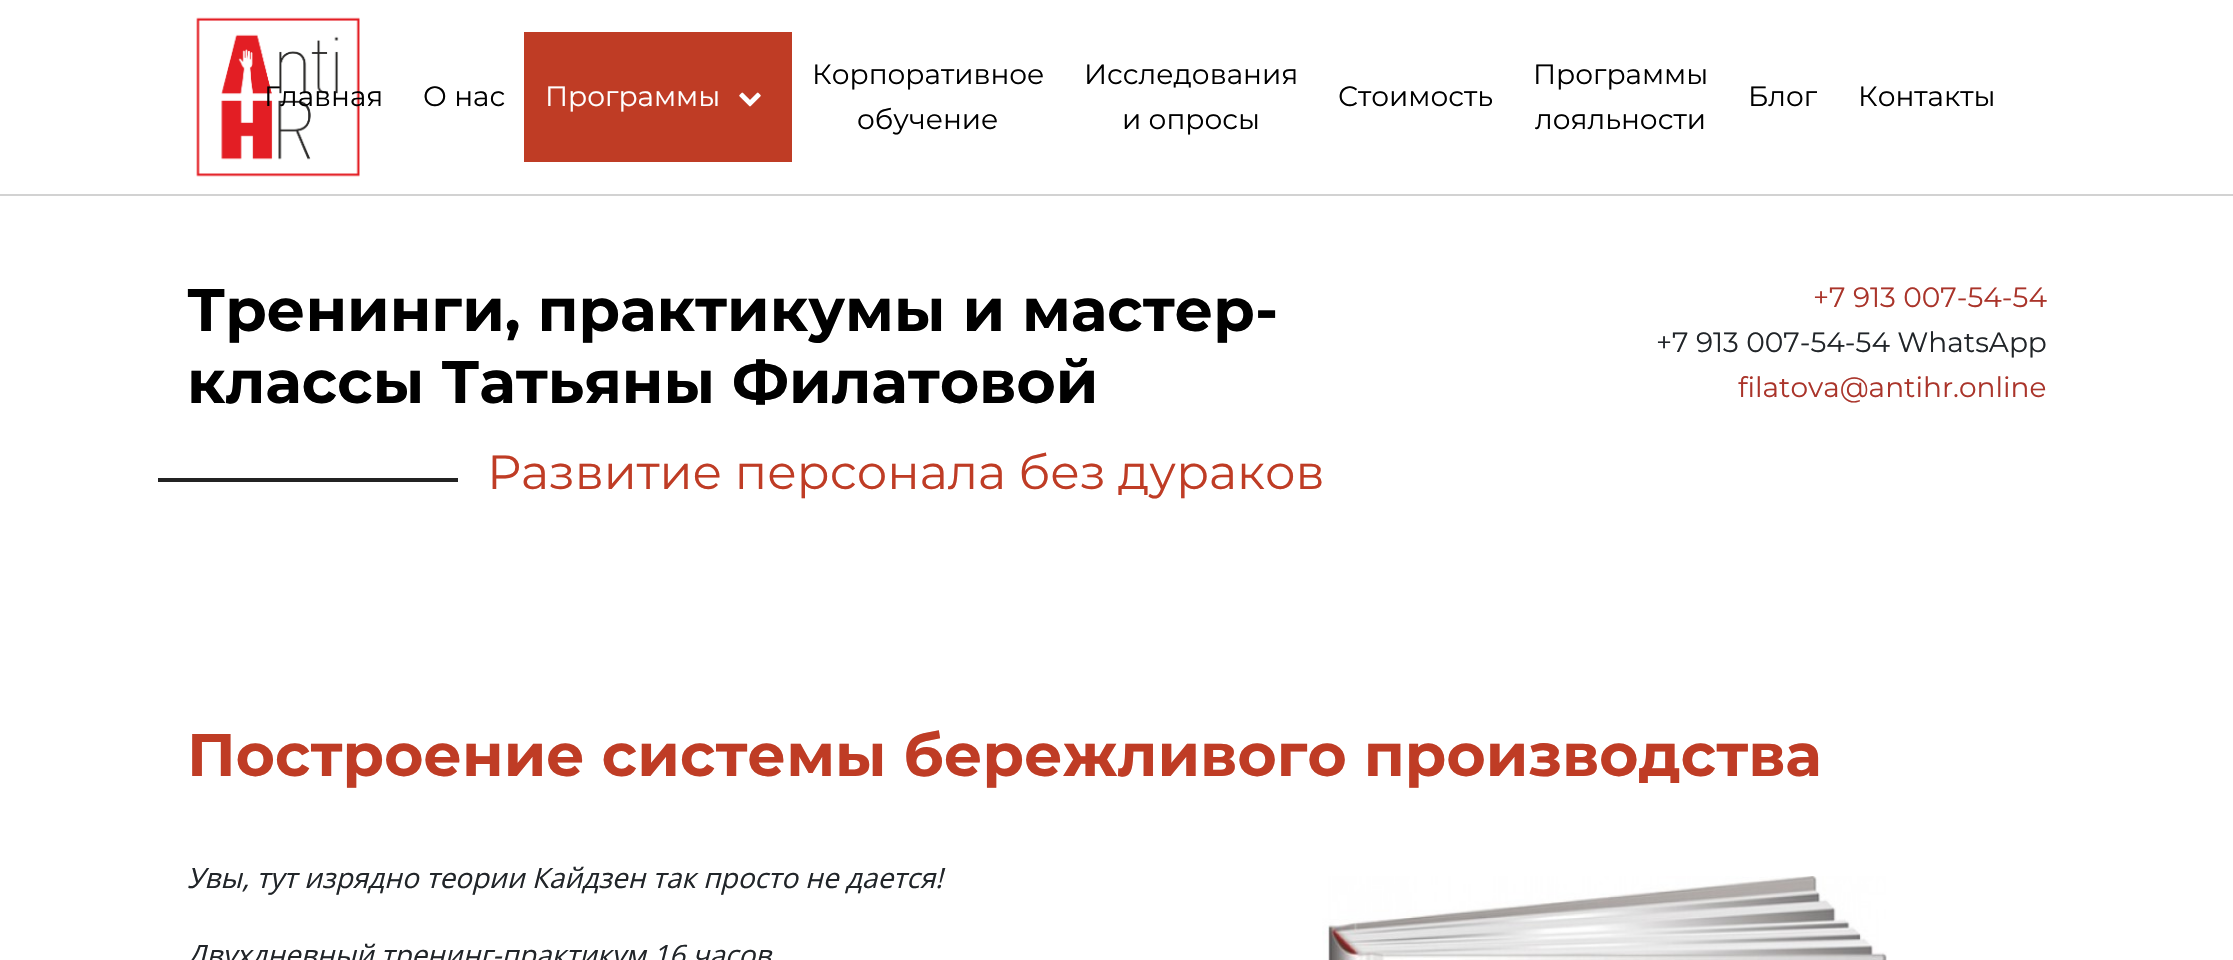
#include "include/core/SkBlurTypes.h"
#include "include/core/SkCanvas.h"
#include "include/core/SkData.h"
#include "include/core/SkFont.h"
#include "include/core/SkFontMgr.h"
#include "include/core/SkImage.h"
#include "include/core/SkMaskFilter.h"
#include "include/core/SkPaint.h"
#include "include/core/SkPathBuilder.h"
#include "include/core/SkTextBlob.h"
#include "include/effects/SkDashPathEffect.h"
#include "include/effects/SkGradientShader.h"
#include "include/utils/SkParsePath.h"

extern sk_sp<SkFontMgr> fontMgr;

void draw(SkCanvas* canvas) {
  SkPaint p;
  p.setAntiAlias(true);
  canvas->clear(SK_ColorWHITE);
  p.setColor(SkColorSetRGB(210, 210, 210));
  canvas->drawRect(SkRect::MakeLTRB(0, 194, 2233, 196), p);
  canvas->drawImageRect(SkImages::DeferredFromEncodedData(SkData::MakeFromFileName("images/1.png")), SkRect::MakeLTRB(196, 17, 360, 177), SkSamplingOptions());
  p.setColor(SkColorSetRGB(191, 60, 37));
  canvas->drawRect(SkRect::MakeLTRB(524, 32, 792, 162), p);
  canvas->drawImageRect(SkImages::DeferredFromEncodedData(SkData::MakeFromFileName("images/2.png")), SkRect::MakeLTRB(739, 92, 761, 107), SkSamplingOptions());
  p.setColor(SkColorSetRGB(35, 35, 35));
  canvas->drawRect(SkRect::MakeLTRB(158, 478, 458, 482), p);
  canvas->drawImageRect(SkImages::DeferredFromEncodedData(SkData::MakeFromFileName("images/3.png")), SkRect::MakeLTRB(1322, 876, 1887, 960), SkSamplingOptions());
  SkFont font1(fontMgr->matchFamilyStyle("Montserrat", SkFontStyle::Normal()), 28);
  font1.setSubpixel(true);
  p.setColor(SK_ColorBLACK);
  canvas->drawString("Главная", 264, 106, font1, p);
  canvas->drawString("О нас", 423, 106, font1, p);
  p.setColor(SK_ColorWHITE);
  canvas->drawString("Программы", 545, 106, font1, p);
  p.setColor(SK_ColorBLACK);
  canvas->drawString("Корпоративное", 812, 84, font1, p);
  canvas->drawString("обучение", 857, 129, font1, p);
  canvas->drawString("Исследования", 1084, 84, font1, p);
  canvas->drawString("и опросы", 1122, 129, font1, p);
  canvas->drawString("Стоимость", 1338, 106, font1, p);
  canvas->drawString("Программы", 1533, 84, font1, p);
  canvas->drawString("лояльности", 1535, 129, font1, p);
  canvas->drawString("Блог", 1748, 106, font1, p);
  canvas->drawString("Контакты", 1858, 106, font1, p);
  SkFont font2(fontMgr->matchFamilyStyle("Montserrat", SkFontStyle::Bold()), 60);
  font2.setSubpixel(true);
  canvas->drawString("Тренинги, практикумы и мастер-", 187, 331, font2, p);
  canvas->drawString("классы Татьяны Филатовой", 187, 403, font2, p);
  SkFont font3(fontMgr->matchFamilyStyle("Montserrat", SkFontStyle::Normal()), 48);
  font3.setSubpixel(true);
  p.setColor(SkColorSetRGB(191, 60, 37));
  canvas->drawString("Развитие персонала без дураков", 487, 489, font3, p);
  p.setColor(SkColorSetRGB(170, 52, 42));
  canvas->drawString("+7 913 007-54-54", 1813, 307, font1, p);
  p.setColor(SkColorSetRGB(33, 37, 41));
  canvas->drawString("+7 913 007-54-54 WhatsApp", 1656, 352, font1, p);
  p.setColor(SkColorSetRGB(170, 52, 42));
  canvas->drawString("filatova@antihr.online", 1738, 397, font1, p);
  p.setColor(SkColorSetRGB(191, 60, 37));
  canvas->drawString("Построение системы бережливого производства", 187, 776, font2, p);
  SkFont font4(fontMgr->matchFamilyStyle("Open Sans", SkFontStyle::Italic()), 28);
  font4.setSubpixel(true);
  p.setColor(SkColorSetRGB(33, 37, 41));
  canvas->drawString("Увы, тут изрядно теории Кайдзен так просто не дается!", 187, 888, font4, p);
  canvas->drawString("Двухдневный тренинг-практикум 16 часов", 187, 965, font4, p);
}
